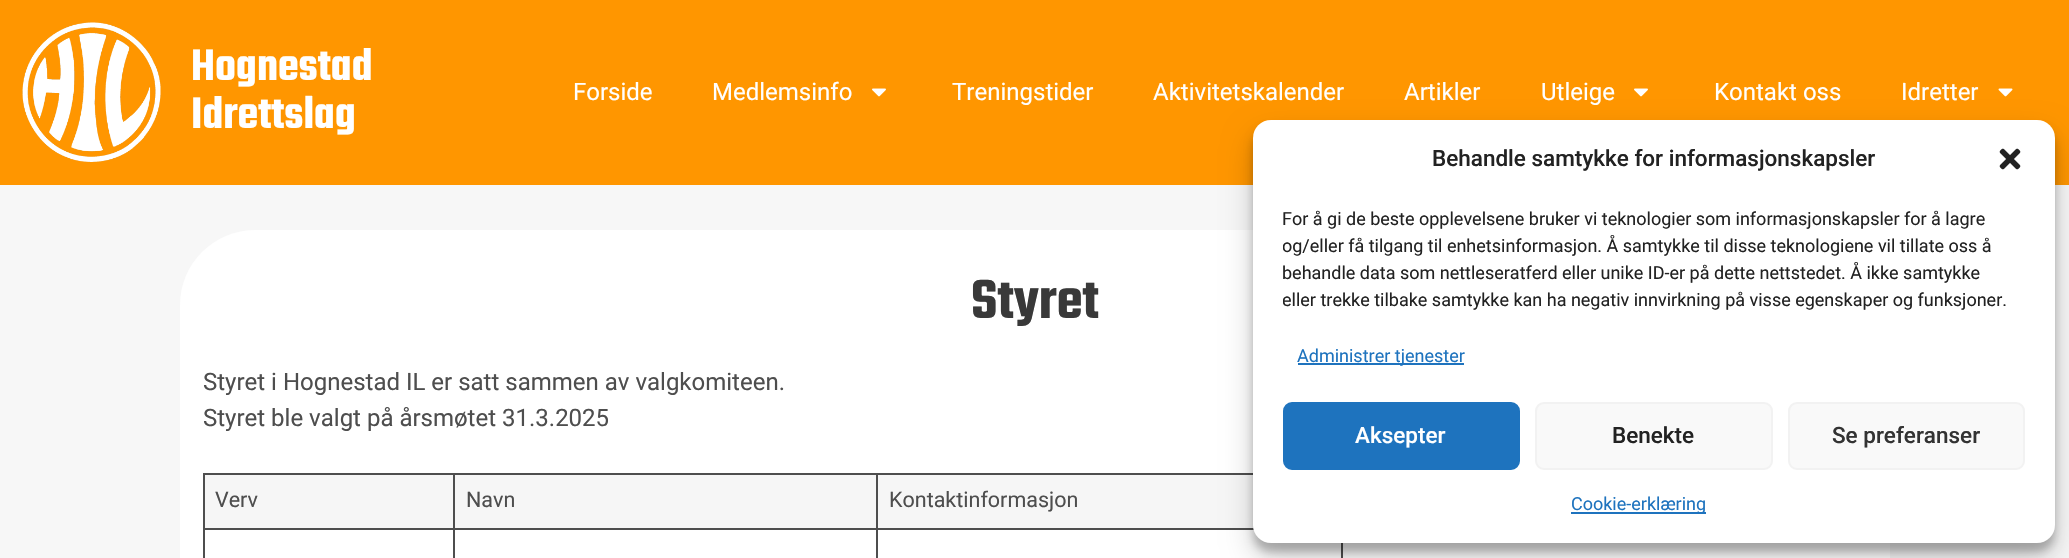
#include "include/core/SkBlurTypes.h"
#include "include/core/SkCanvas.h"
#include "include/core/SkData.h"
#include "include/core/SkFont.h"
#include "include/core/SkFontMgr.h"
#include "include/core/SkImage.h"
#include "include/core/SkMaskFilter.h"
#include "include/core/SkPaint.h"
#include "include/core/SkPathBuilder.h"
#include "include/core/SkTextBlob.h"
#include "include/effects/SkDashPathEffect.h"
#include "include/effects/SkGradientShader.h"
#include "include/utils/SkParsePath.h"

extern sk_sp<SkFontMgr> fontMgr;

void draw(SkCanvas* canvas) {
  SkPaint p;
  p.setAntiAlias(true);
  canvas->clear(SkColorSetRGB(247, 247, 247));
  p.setColor(SkColorSetRGB(255, 150, 0));
  canvas->drawRect(SkRect::MakeLTRB(0, 0, 2069, 185), p);
  canvas->drawImageRect(SkImages::DeferredFromEncodedData(SkData::MakeFromFileName("images/1.png")), SkRect::MakeLTRB(22, 22, 161, 162), SkSamplingOptions());
  canvas->drawImageRect(SkImages::DeferredFromEncodedData(SkData::MakeFromFileName("images/2.png")), SkRect::MakeLTRB(872, 88, 886, 97), SkSamplingOptions());
  canvas->drawImageRect(SkImages::DeferredFromEncodedData(SkData::MakeFromFileName("images/2.png")), SkRect::MakeLTRB(1634, 88, 1648, 97), SkSamplingOptions());
  canvas->drawImageRect(SkImages::DeferredFromEncodedData(SkData::MakeFromFileName("images/3.png")), SkRect::MakeLTRB(1998, 88, 2013, 97), SkSamplingOptions());
  p.setColor(SK_ColorWHITE);
  canvas->drawRoundRect(SkRect::MakeLTRB(180, 230, 1890, 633), 75, 75, p);
  p.setColor(SkColorSetRGB(246, 246, 246));
  canvas->drawRect(SkRect::MakeLTRB(205, 475, 453, 528), p);
  p.setColor(SkColorSetRGB(78, 78, 78));
  canvas->drawRect(SkRect::MakeLTRB(876, 473, 1253, 475), p);
  canvas->drawRect(SkRect::MakeLTRB(876, 528, 1254, 530), p);
  canvas->drawRect(SkRect::MakeLTRB(876, 528, 878, 558), p);
  canvas->drawRect(SkRect::MakeLTRB(453, 528, 878, 530), p);
  canvas->drawRect(SkRect::MakeLTRB(876, 473, 878, 530), p);
  canvas->drawRect(SkRect::MakeLTRB(453, 473, 878, 475), p);
  canvas->drawRect(SkRect::MakeLTRB(453, 528, 455, 558), p);
  canvas->drawRect(SkRect::MakeLTRB(203, 528, 455, 530), p);
  canvas->drawRect(SkRect::MakeLTRB(453, 473, 455, 530), p);
  canvas->drawRect(SkRect::MakeLTRB(203, 473, 455, 475), p);
  canvas->drawRect(SkRect::MakeLTRB(203, 528, 205, 558), p);
  canvas->drawRect(SkRect::MakeLTRB(203, 473, 205, 530), p);
  p.setColor(SkColorSetRGB(246, 246, 246));
  canvas->drawRect(SkRect::MakeLTRB(455, 475, 876, 528), p);
  canvas->drawRect(SkRect::MakeLTRB(878, 475, 1254, 528), p);
  p.setColor(SkColorSetRGB(78, 78, 78));
  canvas->drawRect(SkRect::MakeLTRB(1341, 543, 1343, 558), p);
  p.setColor(SkColorSetARGB(59, 0, 0, 0));
  p.setMaskFilter(SkMaskFilter::MakeBlur(kNormal_SkBlurStyle, 4.5f));
  canvas->drawRoundRect(SkRect::MakeLTRB(1253, 129, 2055, 552), 18, 18, p);
  p.setMaskFilter(nullptr);
  p.setColor(SkColorSetARGB(48, 0, 0, 0));
  p.setMaskFilter(SkMaskFilter::MakeBlur(kNormal_SkBlurStyle, 15));
  canvas->drawRoundRect(SkRect::MakeLTRB(1253, 135, 2055, 558), 18, 18, p);
  p.setMaskFilter(nullptr);
  p.setColor(SK_ColorWHITE);
  canvas->drawRoundRect(SkRect::MakeLTRB(1253, 120, 2055, 543), 18, 18, p);
  canvas->drawImageRect(SkImages::DeferredFromEncodedData(SkData::MakeFromFileName("images/4.png")), SkRect::MakeLTRB(1999, 148, 2021, 170), SkSamplingOptions());
  p.setColor(SkColorSetRGB(30, 115, 190));
  canvas->drawRect(SkRect::MakeLTRB(1298, 363, 1464, 365), p);
  canvas->drawRoundRect(SkRect::MakeLTRB(1284, 403, 1519, 469), 8, 8, p);
  p.setStyle(SkPaint::kStroke_Style);
  p.setStrokeWidth(2);
  canvas->drawRoundRect(SkRect::MakeLTRB(1284, 403, 1519, 469), 8, 8, p);
  p.setStyle(SkPaint::kFill_Style);
  p.setColor(SkColorSetRGB(249, 249, 249));
  canvas->drawRoundRect(SkRect::MakeLTRB(1536, 403, 1772, 469), 8, 8, p);
  p.setStyle(SkPaint::kStroke_Style);
  p.setColor(SkColorSetRGB(242, 242, 242));
  canvas->drawRoundRect(SkRect::MakeLTRB(1536, 403, 1772, 469), 8, 8, p);
  p.setStyle(SkPaint::kFill_Style);
  p.setColor(SkColorSetRGB(249, 249, 249));
  canvas->drawRoundRect(SkRect::MakeLTRB(1789, 403, 2024, 469), 8, 8, p);
  p.setStyle(SkPaint::kStroke_Style);
  p.setColor(SkColorSetRGB(242, 242, 242));
  canvas->drawRoundRect(SkRect::MakeLTRB(1789, 403, 2024, 469), 8, 8, p);
  p.setStyle(SkPaint::kFill_Style);
  p.setColor(SkColorSetRGB(30, 115, 190));
  canvas->drawRect(SkRect::MakeLTRB(1571, 512, 1706, 514), p);
  SkFont font1(fontMgr->matchFamilyStyle("Teko", SkFontStyle(600, SkFontStyle::kNormal_Width, SkFontStyle::kUpright_Slant)), 48);
  font1.setSubpixel(true);
  p.setColor(SK_ColorWHITE);
  canvas->drawString("Hognestad", 191, 80, font1, p);
  canvas->drawString("Idrettslag", 191, 128, font1, p);
  SkFont font2(fontMgr->matchFamilyStyle("Roboto", SkFontStyle::Normal()), 24);
  font2.setSubpixel(true);
  canvas->drawString("Forside", 573, 100, font2, p);
  canvas->drawString("Medlemsinfo", 712, 100, font2, p);
  canvas->drawString("Treningstider", 952, 100, font2, p);
  canvas->drawString("Aktivitetskalender", 1153, 100, font2, p);
  canvas->drawString("Artikler", 1404, 100, font2, p);
  canvas->drawString("Utleige", 1541, 100, font2, p);
  canvas->drawString("Kontakt oss", 1714, 100, font2, p);
  canvas->drawString("Idretter", 1901, 100, font2, p);
  SkFont font3(fontMgr->matchFamilyStyle("Teko", SkFontStyle(600, SkFontStyle::kNormal_Width, SkFontStyle::kUpright_Slant)), 60);
  font3.setSubpixel(true);
  p.setColor(SkColorSetRGB(57, 57, 57));
  canvas->drawString("Styret", 971, 318, font3, p);
  p.setColor(SkColorSetRGB(78, 78, 78));
  canvas->drawString("Styret i Hognestad IL er satt sammen av valgkomiteen.", 203, 390, font2, p);
  canvas->drawString("Styret ble valgt på årsmøtet 31.3.2025", 203, 426, font2, p);
  SkFont font4(fontMgr->matchFamilyStyle("Roboto", SkFontStyle::Normal()), 21.5f);
  font4.setSubpixel(true);
  canvas->drawString("Verv", 215, 507, font4, p);
  canvas->drawString("Navn", 466, 507, font4, p);
  canvas->drawString("Kontaktinformasjon", 889, 507, font4, p);
  SkFont font5(fontMgr->matchFamilyStyle("Roboto", SkFontStyle(500, SkFontStyle::kNormal_Width, SkFontStyle::kUpright_Slant)), 22.5f);
  font5.setSubpixel(true);
  p.setColor(SkColorSetRGB(34, 34, 34));
  canvas->drawString("Behandle samtykke for informasjonskapsler", 1432, 166, font5, p);
  SkFont font6(fontMgr->matchFamilyStyle("Roboto", SkFontStyle::Normal()), 18);
  font6.setSubpixel(true);
  canvas->drawString("For å gi de beste opplevelsene bruker vi teknologier som informasjonskapsler for å lagre", 1282, 225, font6, p);
  canvas->save();
  canvas->clipRect(SkRect::MakeLTRB(1283, 206, 2025, 321));
  canvas->drawString("og/eller få tilgang til enhetsinformasjon. Å samtykke til disse teknologiene vil tillate oss å", 1282, 252, font6, p);
  canvas->restore();
  canvas->drawString("behandle data som nettleseratferd eller unike ID-er på dette nettstedet. Å ikke samtykke", 1282, 279, font6, p);
  canvas->save();
  canvas->clipRect(SkRect::MakeLTRB(1283, 206, 2025, 321));
  canvas->drawString("eller trekke tilbake samtykke kan ha negativ innvirkning på visse egenskaper og funksjoner.", 1282, 306, font6, p);
  canvas->restore();
  p.setColor(SkColorSetRGB(30, 115, 190));
  canvas->drawString("Administrer tjenester", 1297, 362, font6, p);
  p.setColor(SK_ColorWHITE);
  canvas->drawString("Aksepter", 1355, 443, font5, p);
  p.setColor(SkColorSetRGB(34, 34, 34));
  canvas->drawString("Benekte", 1612, 443, font5, p);
  p.setColor(SkColorSetRGB(51, 51, 51));
  canvas->drawString("Se preferanser", 1832, 443, font5, p);
  p.setColor(SkColorSetRGB(30, 115, 190));
  canvas->drawString("Cookie-erklæring", 1571, 510, font6, p);
}
